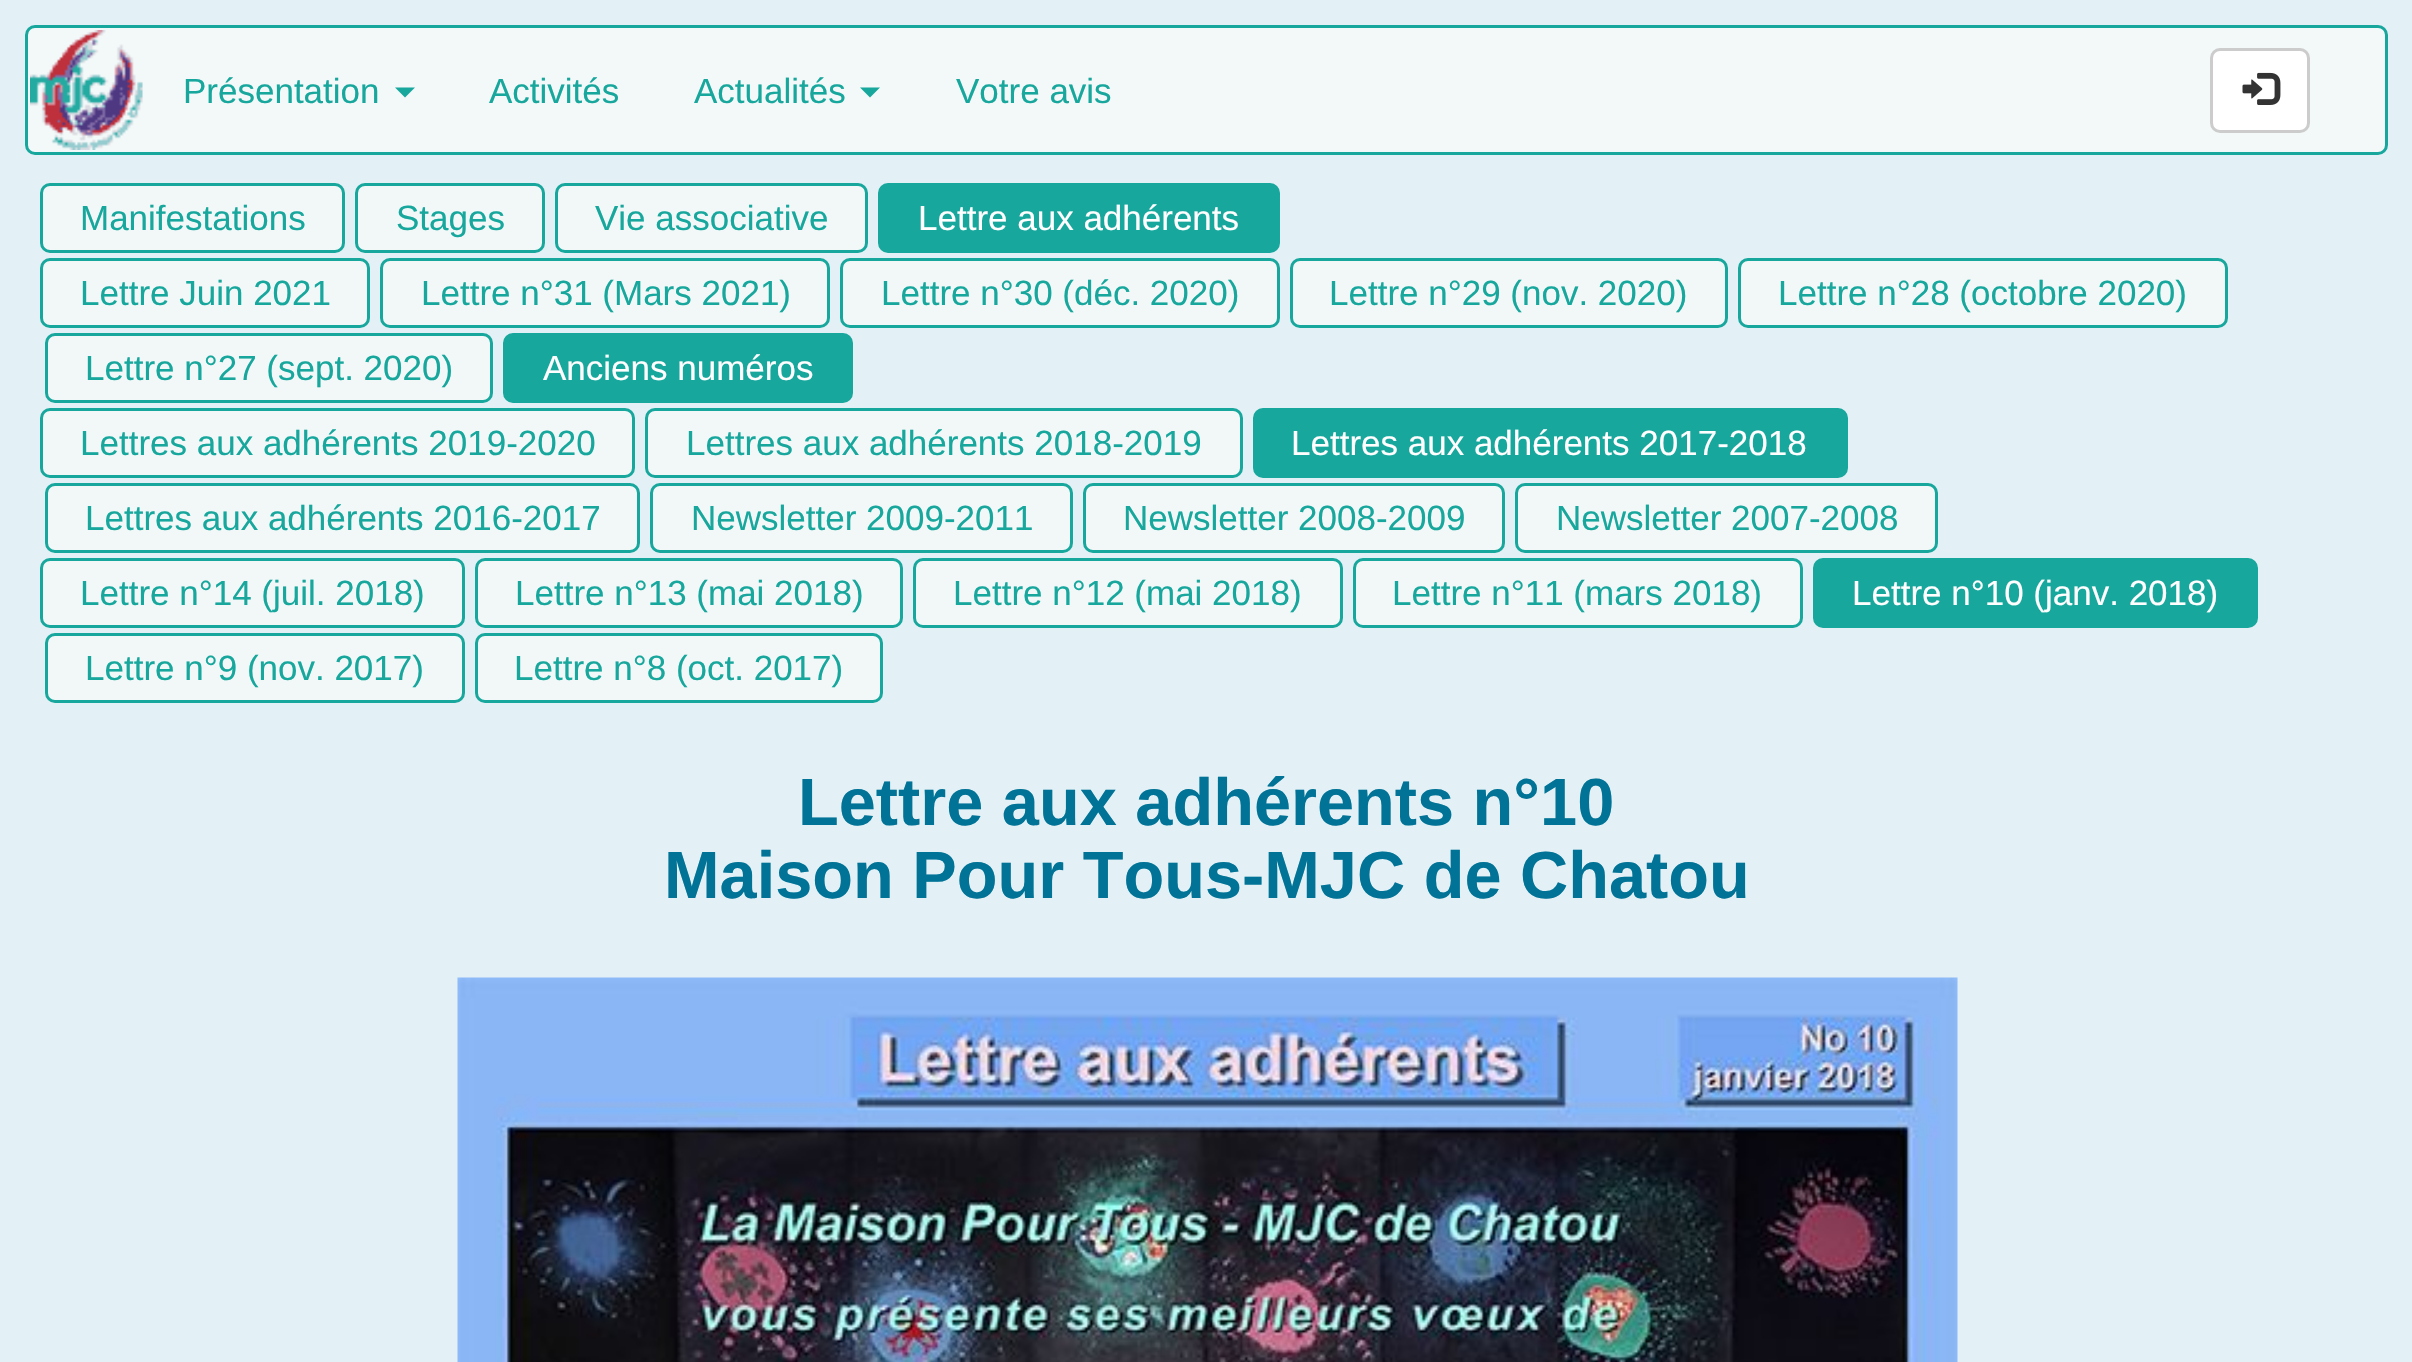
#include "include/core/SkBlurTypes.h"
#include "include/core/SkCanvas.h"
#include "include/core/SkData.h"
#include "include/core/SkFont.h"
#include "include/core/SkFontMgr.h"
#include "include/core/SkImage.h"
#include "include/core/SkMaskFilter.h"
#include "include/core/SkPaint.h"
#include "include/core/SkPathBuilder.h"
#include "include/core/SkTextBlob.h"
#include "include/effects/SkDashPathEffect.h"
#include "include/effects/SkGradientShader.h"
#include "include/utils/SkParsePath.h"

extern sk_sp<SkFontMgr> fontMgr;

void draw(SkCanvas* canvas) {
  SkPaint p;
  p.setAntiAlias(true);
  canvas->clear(SkColorSetRGB(227, 241, 246));
  p.setColor(SkColorSetRGB(243, 248, 248));
  canvas->drawRoundRect(SkRect::MakeLTRB(26.5f, 26.5f, 2386.5f, 153.5f), 8.5f, 8.5f, p);
  p.setStyle(SkPaint::kStroke_Style);
  p.setStrokeWidth(3);
  p.setColor(SkColorSetRGB(23, 167, 157));
  canvas->drawRoundRect(SkRect::MakeLTRB(26.5f, 26.5f, 2386.5f, 153.5f), 8.5f, 8.5f, p);
  canvas->drawImageRect(SkImages::DeferredFromEncodedData(SkData::MakeFromFileName("images/1.png")), SkRect::MakeLTRB(30, 30, 143, 150), SkSamplingOptions());
  p.setStyle(SkPaint::kFill_Style);
  canvas->drawPath(SkPathBuilder().moveTo(395, 87.5f).lineTo(415, 87.5f).lineTo(405, 97.5f).close().detach(), p);
  canvas->drawPath(SkPathBuilder().moveTo(860, 87.5f).lineTo(880, 87.5f).lineTo(870, 97.5f).close().detach(), p);
  p.setColor(SK_ColorWHITE);
  canvas->drawRoundRect(SkRect::MakeLTRB(2211.5f, 49.5f, 2308.5f, 131.5f), 8.5f, 8.5f, p);
  p.setStyle(SkPaint::kStroke_Style);
  p.setColor(SkColorSetRGB(204, 204, 204));
  canvas->drawRoundRect(SkRect::MakeLTRB(2211.5f, 49.5f, 2308.5f, 131.5f), 8.5f, 8.5f, p);
  canvas->drawImageRect(SkImages::DeferredFromEncodedData(SkData::MakeFromFileName("images/2.png")), SkRect::MakeLTRB(2242, 72, 2281, 105), SkSamplingOptions());
  p.setStyle(SkPaint::kFill_Style);
  p.setColor(SkColorSetRGB(242, 248, 248));
  canvas->drawRoundRect(SkRect::MakeLTRB(41.5f, 184.5f, 343.5f, 251.5f), 8.5f, 8.5f, p);
  p.setStyle(SkPaint::kStroke_Style);
  p.setColor(SkColorSetRGB(23, 167, 157));
  canvas->drawRoundRect(SkRect::MakeLTRB(41.5f, 184.5f, 343.5f, 251.5f), 8.5f, 8.5f, p);
  p.setStyle(SkPaint::kFill_Style);
  p.setColor(SkColorSetRGB(242, 248, 248));
  canvas->drawRoundRect(SkRect::MakeLTRB(356.5f, 184.5f, 543.5f, 251.5f), 8.5f, 8.5f, p);
  p.setStyle(SkPaint::kStroke_Style);
  p.setColor(SkColorSetRGB(23, 167, 157));
  canvas->drawRoundRect(SkRect::MakeLTRB(356.5f, 184.5f, 543.5f, 251.5f), 8.5f, 8.5f, p);
  p.setStyle(SkPaint::kFill_Style);
  p.setColor(SkColorSetRGB(242, 248, 248));
  canvas->drawRoundRect(SkRect::MakeLTRB(556.5f, 184.5f, 866.5f, 251.5f), 8.5f, 8.5f, p);
  p.setStyle(SkPaint::kStroke_Style);
  p.setColor(SkColorSetRGB(23, 167, 157));
  canvas->drawRoundRect(SkRect::MakeLTRB(556.5f, 184.5f, 866.5f, 251.5f), 8.5f, 8.5f, p);
  p.setStyle(SkPaint::kFill_Style);
  canvas->drawRoundRect(SkRect::MakeLTRB(879.5f, 184.5f, 1278.5f, 251.5f), 8.5f, 8.5f, p);
  p.setStyle(SkPaint::kStroke_Style);
  canvas->drawRoundRect(SkRect::MakeLTRB(879.5f, 184.5f, 1278.5f, 251.5f), 8.5f, 8.5f, p);
  p.setStyle(SkPaint::kFill_Style);
  p.setColor(SkColorSetRGB(242, 248, 248));
  canvas->drawRoundRect(SkRect::MakeLTRB(41.5f, 259.5f, 368.5f, 326.5f), 8.5f, 8.5f, p);
  p.setStyle(SkPaint::kStroke_Style);
  p.setColor(SkColorSetRGB(23, 167, 157));
  canvas->drawRoundRect(SkRect::MakeLTRB(41.5f, 259.5f, 368.5f, 326.5f), 8.5f, 8.5f, p);
  p.setStyle(SkPaint::kFill_Style);
  p.setColor(SkColorSetRGB(242, 248, 248));
  canvas->drawRoundRect(SkRect::MakeLTRB(381.5f, 259.5f, 828.5f, 326.5f), 8.5f, 8.5f, p);
  p.setStyle(SkPaint::kStroke_Style);
  p.setColor(SkColorSetRGB(23, 167, 157));
  canvas->drawRoundRect(SkRect::MakeLTRB(381.5f, 259.5f, 828.5f, 326.5f), 8.5f, 8.5f, p);
  p.setStyle(SkPaint::kFill_Style);
  p.setColor(SkColorSetRGB(242, 248, 248));
  canvas->drawRoundRect(SkRect::MakeLTRB(841.5f, 259.5f, 1278.5f, 326.5f), 8.5f, 8.5f, p);
  p.setStyle(SkPaint::kStroke_Style);
  p.setColor(SkColorSetRGB(23, 167, 157));
  canvas->drawRoundRect(SkRect::MakeLTRB(841.5f, 259.5f, 1278.5f, 326.5f), 8.5f, 8.5f, p);
  p.setStyle(SkPaint::kFill_Style);
  p.setColor(SkColorSetRGB(242, 248, 248));
  canvas->drawRoundRect(SkRect::MakeLTRB(1291.5f, 259.5f, 1726.5f, 326.5f), 8.5f, 8.5f, p);
  p.setStyle(SkPaint::kStroke_Style);
  p.setColor(SkColorSetRGB(23, 167, 157));
  canvas->drawRoundRect(SkRect::MakeLTRB(1291.5f, 259.5f, 1726.5f, 326.5f), 8.5f, 8.5f, p);
  p.setStyle(SkPaint::kFill_Style);
  p.setColor(SkColorSetRGB(242, 248, 248));
  canvas->drawRoundRect(SkRect::MakeLTRB(1739.5f, 259.5f, 2226.5f, 326.5f), 8.5f, 8.5f, p);
  p.setStyle(SkPaint::kStroke_Style);
  p.setColor(SkColorSetRGB(23, 167, 157));
  canvas->drawRoundRect(SkRect::MakeLTRB(1739.5f, 259.5f, 2226.5f, 326.5f), 8.5f, 8.5f, p);
  p.setStyle(SkPaint::kFill_Style);
  p.setColor(SkColorSetRGB(242, 248, 248));
  canvas->drawRoundRect(SkRect::MakeLTRB(46.5f, 334.5f, 491.5f, 401.5f), 8.5f, 8.5f, p);
  p.setStyle(SkPaint::kStroke_Style);
  p.setColor(SkColorSetRGB(23, 167, 157));
  canvas->drawRoundRect(SkRect::MakeLTRB(46.5f, 334.5f, 491.5f, 401.5f), 8.5f, 8.5f, p);
  p.setStyle(SkPaint::kFill_Style);
  canvas->drawRoundRect(SkRect::MakeLTRB(504.5f, 334.5f, 851.5f, 401.5f), 8.5f, 8.5f, p);
  p.setStyle(SkPaint::kStroke_Style);
  canvas->drawRoundRect(SkRect::MakeLTRB(504.5f, 334.5f, 851.5f, 401.5f), 8.5f, 8.5f, p);
  p.setStyle(SkPaint::kFill_Style);
  p.setColor(SkColorSetRGB(242, 248, 248));
  canvas->drawRoundRect(SkRect::MakeLTRB(41.5f, 409.5f, 633.5f, 476.5f), 8.5f, 8.5f, p);
  p.setStyle(SkPaint::kStroke_Style);
  p.setColor(SkColorSetRGB(23, 167, 157));
  canvas->drawRoundRect(SkRect::MakeLTRB(41.5f, 409.5f, 633.5f, 476.5f), 8.5f, 8.5f, p);
  p.setStyle(SkPaint::kFill_Style);
  p.setColor(SkColorSetRGB(242, 248, 248));
  canvas->drawRoundRect(SkRect::MakeLTRB(646.5f, 409.5f, 1241.5f, 476.5f), 8.5f, 8.5f, p);
  p.setStyle(SkPaint::kStroke_Style);
  p.setColor(SkColorSetRGB(23, 167, 157));
  canvas->drawRoundRect(SkRect::MakeLTRB(646.5f, 409.5f, 1241.5f, 476.5f), 8.5f, 8.5f, p);
  p.setStyle(SkPaint::kFill_Style);
  canvas->drawRoundRect(SkRect::MakeLTRB(1254.5f, 409.5f, 1846.5f, 476.5f), 8.5f, 8.5f, p);
  p.setStyle(SkPaint::kStroke_Style);
  canvas->drawRoundRect(SkRect::MakeLTRB(1254.5f, 409.5f, 1846.5f, 476.5f), 8.5f, 8.5f, p);
  p.setStyle(SkPaint::kFill_Style);
  p.setColor(SkColorSetRGB(242, 248, 248));
  canvas->drawRoundRect(SkRect::MakeLTRB(46.5f, 484.5f, 638.5f, 551.5f), 8.5f, 8.5f, p);
  p.setStyle(SkPaint::kStroke_Style);
  p.setColor(SkColorSetRGB(23, 167, 157));
  canvas->drawRoundRect(SkRect::MakeLTRB(46.5f, 484.5f, 638.5f, 551.5f), 8.5f, 8.5f, p);
  p.setStyle(SkPaint::kFill_Style);
  p.setColor(SkColorSetRGB(242, 248, 248));
  canvas->drawRoundRect(SkRect::MakeLTRB(651.5f, 484.5f, 1071.5f, 551.5f), 8.5f, 8.5f, p);
  p.setStyle(SkPaint::kStroke_Style);
  p.setColor(SkColorSetRGB(23, 167, 157));
  canvas->drawRoundRect(SkRect::MakeLTRB(651.5f, 484.5f, 1071.5f, 551.5f), 8.5f, 8.5f, p);
  p.setStyle(SkPaint::kFill_Style);
  p.setColor(SkColorSetRGB(242, 248, 248));
  canvas->drawRoundRect(SkRect::MakeLTRB(1084.5f, 484.5f, 1503.5f, 551.5f), 8.5f, 8.5f, p);
  p.setStyle(SkPaint::kStroke_Style);
  p.setColor(SkColorSetRGB(23, 167, 157));
  canvas->drawRoundRect(SkRect::MakeLTRB(1084.5f, 484.5f, 1503.5f, 551.5f), 8.5f, 8.5f, p);
  p.setStyle(SkPaint::kFill_Style);
  p.setColor(SkColorSetRGB(242, 248, 248));
  canvas->drawRoundRect(SkRect::MakeLTRB(1516.5f, 484.5f, 1936.5f, 551.5f), 8.5f, 8.5f, p);
  p.setStyle(SkPaint::kStroke_Style);
  p.setColor(SkColorSetRGB(23, 167, 157));
  canvas->drawRoundRect(SkRect::MakeLTRB(1516.5f, 484.5f, 1936.5f, 551.5f), 8.5f, 8.5f, p);
  p.setStyle(SkPaint::kFill_Style);
  p.setColor(SkColorSetRGB(242, 248, 248));
  canvas->drawRoundRect(SkRect::MakeLTRB(41.5f, 559.5f, 463.5f, 626.5f), 8.5f, 8.5f, p);
  p.setStyle(SkPaint::kStroke_Style);
  p.setColor(SkColorSetRGB(23, 167, 157));
  canvas->drawRoundRect(SkRect::MakeLTRB(41.5f, 559.5f, 463.5f, 626.5f), 8.5f, 8.5f, p);
  p.setStyle(SkPaint::kFill_Style);
  p.setColor(SkColorSetRGB(242, 248, 248));
  canvas->drawRoundRect(SkRect::MakeLTRB(476.5f, 559.5f, 901.5f, 626.5f), 8.5f, 8.5f, p);
  p.setStyle(SkPaint::kStroke_Style);
  p.setColor(SkColorSetRGB(23, 167, 157));
  canvas->drawRoundRect(SkRect::MakeLTRB(476.5f, 559.5f, 901.5f, 626.5f), 8.5f, 8.5f, p);
  p.setStyle(SkPaint::kFill_Style);
  p.setColor(SkColorSetRGB(242, 248, 248));
  canvas->drawRoundRect(SkRect::MakeLTRB(914.5f, 559.5f, 1341.5f, 626.5f), 8.5f, 8.5f, p);
  p.setStyle(SkPaint::kStroke_Style);
  p.setColor(SkColorSetRGB(23, 167, 157));
  canvas->drawRoundRect(SkRect::MakeLTRB(914.5f, 559.5f, 1341.5f, 626.5f), 8.5f, 8.5f, p);
  p.setStyle(SkPaint::kFill_Style);
  p.setColor(SkColorSetRGB(242, 248, 248));
  canvas->drawRoundRect(SkRect::MakeLTRB(1354.5f, 559.5f, 1801.5f, 626.5f), 8.5f, 8.5f, p);
  p.setStyle(SkPaint::kStroke_Style);
  p.setColor(SkColorSetRGB(23, 167, 157));
  canvas->drawRoundRect(SkRect::MakeLTRB(1354.5f, 559.5f, 1801.5f, 626.5f), 8.5f, 8.5f, p);
  p.setStyle(SkPaint::kFill_Style);
  canvas->drawRoundRect(SkRect::MakeLTRB(1814.5f, 559.5f, 2256.5f, 626.5f), 8.5f, 8.5f, p);
  p.setStyle(SkPaint::kStroke_Style);
  canvas->drawRoundRect(SkRect::MakeLTRB(1814.5f, 559.5f, 2256.5f, 626.5f), 8.5f, 8.5f, p);
  p.setStyle(SkPaint::kFill_Style);
  p.setColor(SkColorSetRGB(242, 248, 248));
  canvas->drawRoundRect(SkRect::MakeLTRB(46.5f, 634.5f, 463.5f, 701.5f), 8.5f, 8.5f, p);
  p.setStyle(SkPaint::kStroke_Style);
  p.setColor(SkColorSetRGB(23, 167, 157));
  canvas->drawRoundRect(SkRect::MakeLTRB(46.5f, 634.5f, 463.5f, 701.5f), 8.5f, 8.5f, p);
  p.setStyle(SkPaint::kFill_Style);
  p.setColor(SkColorSetRGB(242, 248, 248));
  canvas->drawRoundRect(SkRect::MakeLTRB(476.5f, 634.5f, 881.5f, 701.5f), 8.5f, 8.5f, p);
  p.setStyle(SkPaint::kStroke_Style);
  p.setColor(SkColorSetRGB(23, 167, 157));
  canvas->drawRoundRect(SkRect::MakeLTRB(476.5f, 634.5f, 881.5f, 701.5f), 8.5f, 8.5f, p);
  canvas->drawImageRect(SkImages::DeferredFromEncodedData(SkData::MakeFromFileName("images/3.png")), SkRect::MakeLTRB(457, 977, 1958, 1362), SkSamplingOptions());
  SkFont font1(fontMgr->matchFamilyStyle("Liberation Sans", SkFontStyle::Normal()), 35);
  font1.setSubpixel(true);
  p.setStyle(SkPaint::kFill_Style);
  canvas->drawString("Présentation", 183, 103, font1, p);
  canvas->drawString("Activités", 489, 103, font1, p);
  canvas->drawString("Actualités", 694, 103, font1, p);
  canvas->drawString("Votre avis", 956, 103, font1, p);
  canvas->drawString("Manifestations", 80, 230, font1, p);
  canvas->drawString("Stages", 396, 230, font1, p);
  canvas->drawString("Vie associative", 595, 230, font1, p);
  p.setColor(SK_ColorWHITE);
  canvas->drawString("Lettre aux adhérents", 918, 230, font1, p);
  p.setColor(SkColorSetRGB(23, 167, 157));
  canvas->drawString("Lettre Juin 2021", 80, 305, font1, p);
  canvas->drawString("Lettre n°31 (Mars 2021)", 421, 305, font1, p);
  canvas->drawString("Lettre n°30 (déc. 2020)", 881, 305, font1, p);
  canvas->drawString("Lettre n°29 (nov. 2020)", 1329, 305, font1, p);
  canvas->drawString("Lettre n°28 (octobre 2020)", 1778, 305, font1, p);
  canvas->drawString("Lettre n°27 (sept. 2020)", 85, 380, font1, p);
  p.setColor(SK_ColorWHITE);
  canvas->drawString("Anciens numéros", 543, 380, font1, p);
  p.setColor(SkColorSetRGB(23, 167, 157));
  canvas->drawString("Lettres aux adhérents 2019-2020", 80, 455, font1, p);
  canvas->drawString("Lettres aux adhérents 2018-2019", 686, 455, font1, p);
  p.setColor(SK_ColorWHITE);
  canvas->drawString("Lettres aux adhérents 2017-2018", 1291, 455, font1, p);
  p.setColor(SkColorSetRGB(23, 167, 157));
  canvas->drawString("Lettres aux adhérents 2016-2017", 85, 530, font1, p);
  canvas->drawString("Newsletter 2009-2011", 691, 530, font1, p);
  canvas->drawString("Newsletter 2008-2009", 1123, 530, font1, p);
  canvas->drawString("Newsletter 2007-2008", 1556, 530, font1, p);
  canvas->drawString("Lettre n°14 (juil. 2018)", 80, 605, font1, p);
  canvas->drawString("Lettre n°13 (mai 2018)", 515, 605, font1, p);
  canvas->drawString("Lettre n°12 (mai 2018)", 953, 605, font1, p);
  canvas->drawString("Lettre n°11 (mars 2018)", 1392, 605, font1, p);
  p.setColor(SK_ColorWHITE);
  canvas->drawString("Lettre n°10 (janv. 2018)", 1852, 605, font1, p);
  p.setColor(SkColorSetRGB(23, 167, 157));
  canvas->drawString("Lettre n°9 (nov. 2017)", 85, 680, font1, p);
  canvas->drawString("Lettre n°8 (oct. 2017)", 514, 680, font1, p);
  SkFont font2(fontMgr->matchFamilyStyle("Liberation Sans", SkFontStyle::Bold()), 66.7f);
  font2.setSubpixel(true);
  p.setColor(SkColorSetRGB(0, 115, 150));
  canvas->drawString("Lettre aux adhérents n°10", 798, 825, font2, p);
  canvas->drawString("Maison Pour Tous-MJC de Chatou", 664, 898, font2, p);
}
